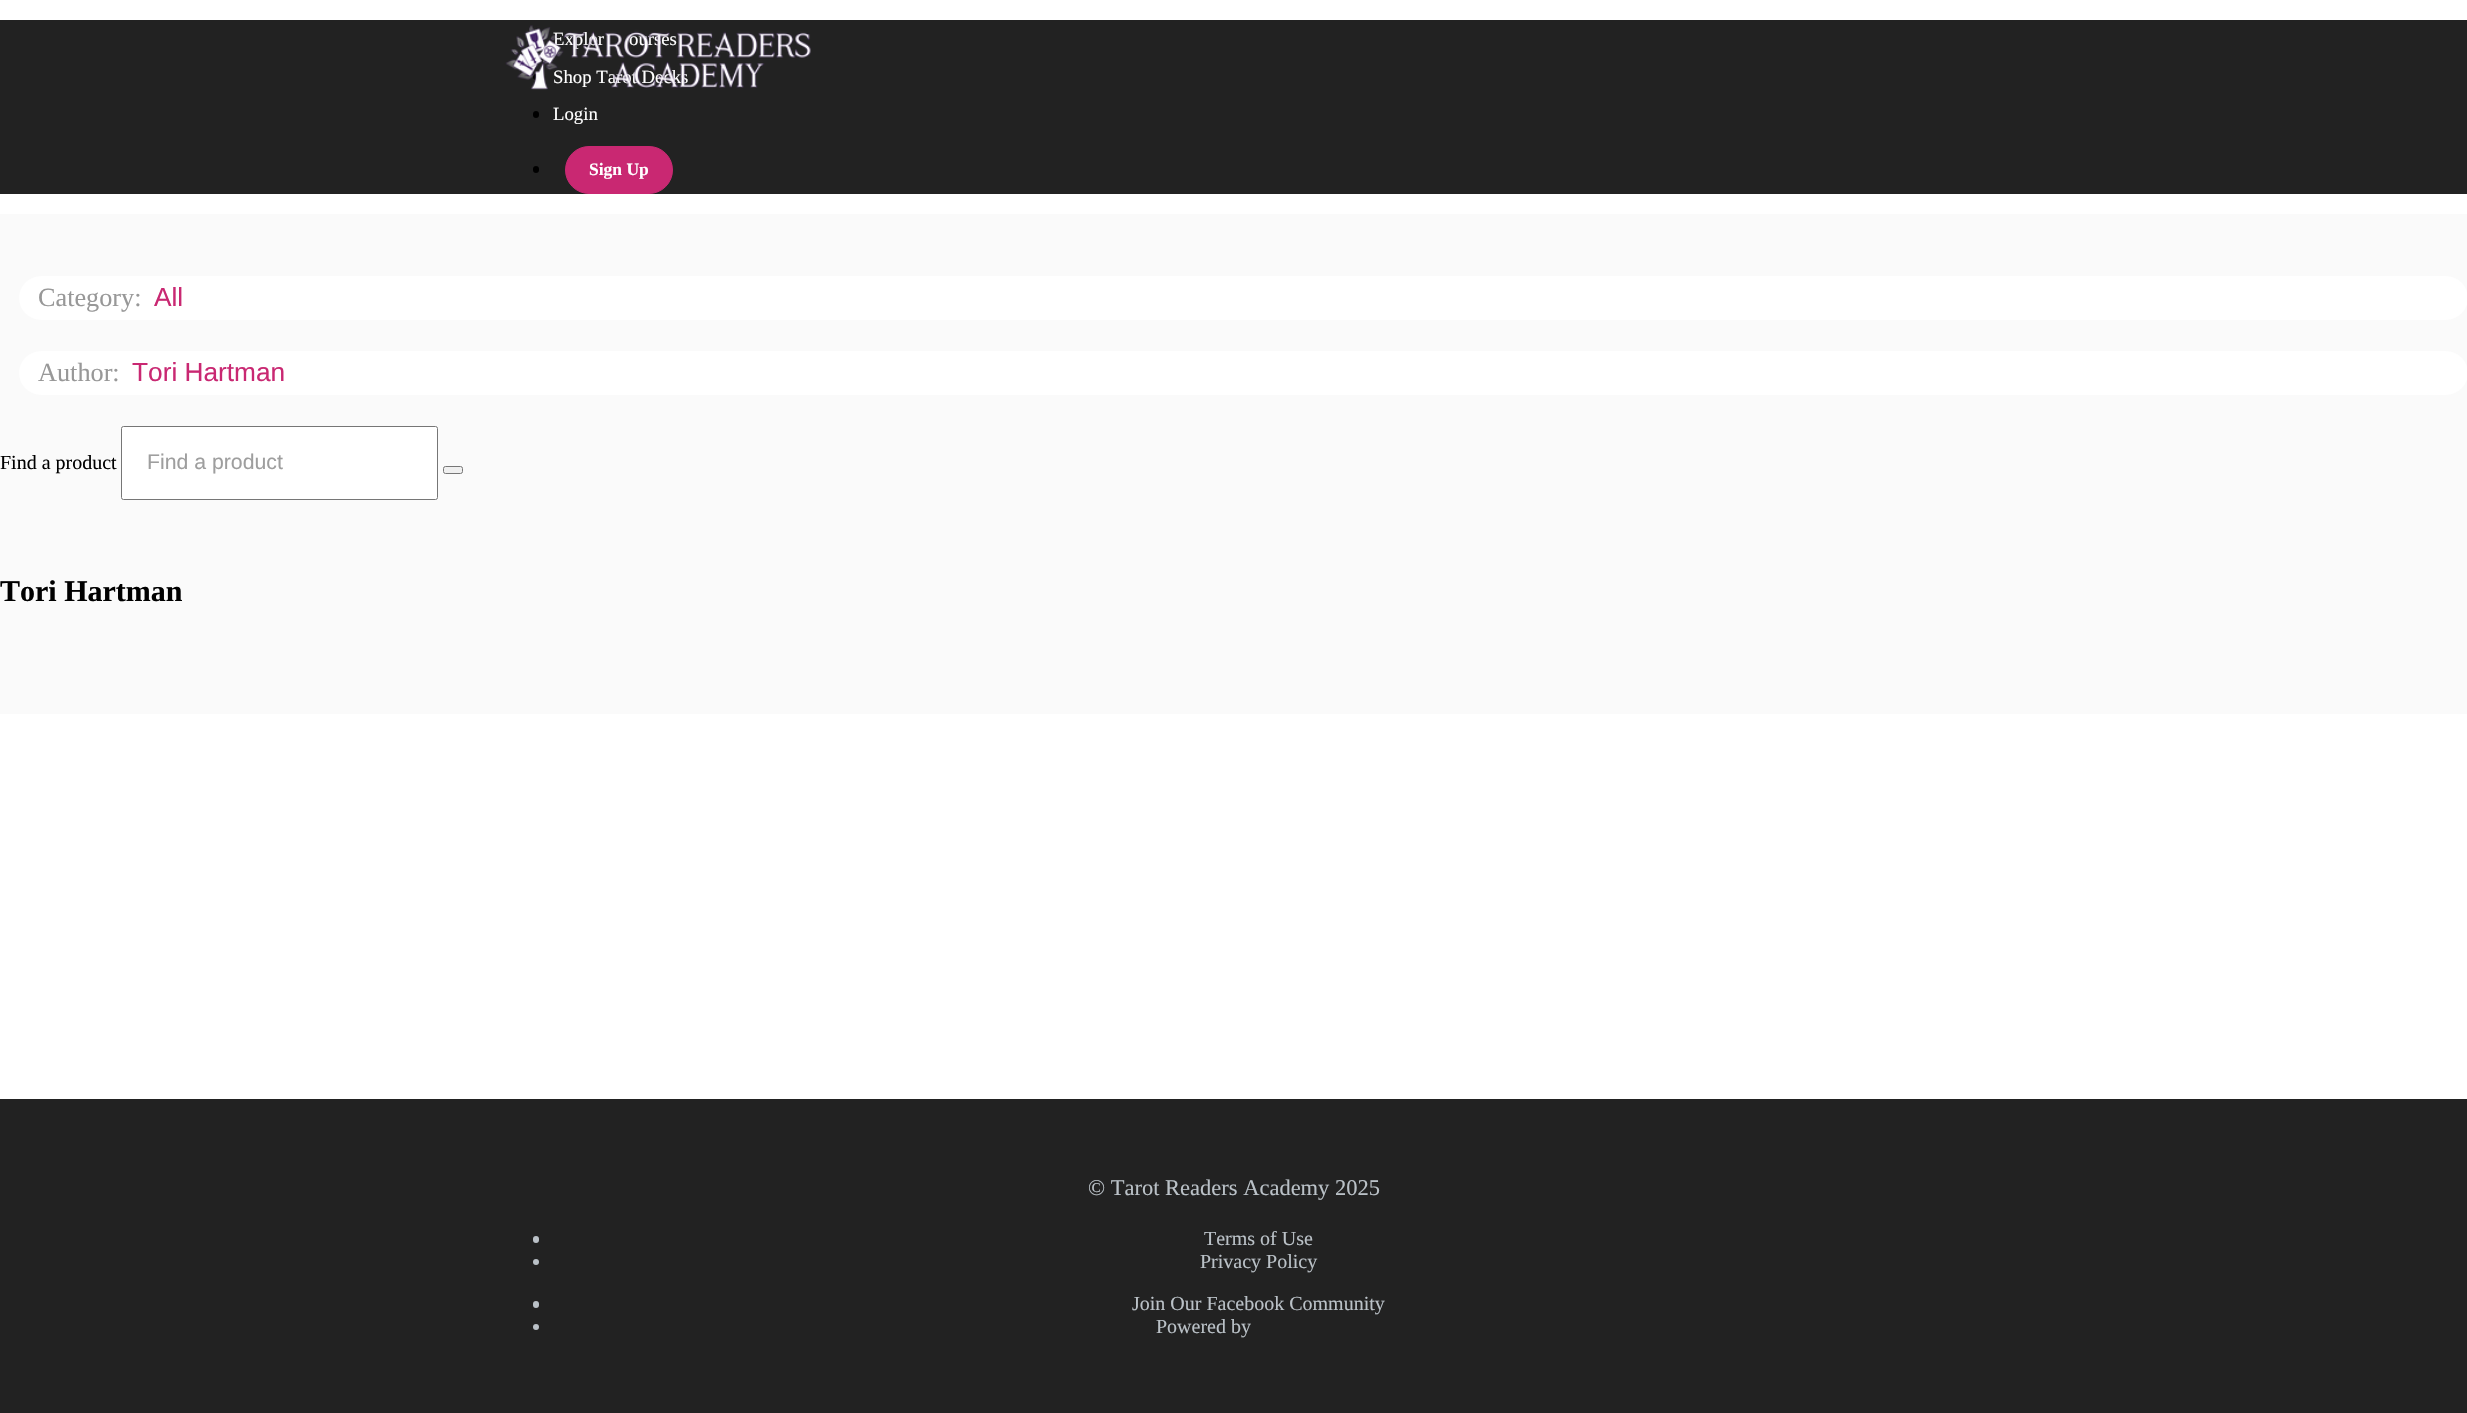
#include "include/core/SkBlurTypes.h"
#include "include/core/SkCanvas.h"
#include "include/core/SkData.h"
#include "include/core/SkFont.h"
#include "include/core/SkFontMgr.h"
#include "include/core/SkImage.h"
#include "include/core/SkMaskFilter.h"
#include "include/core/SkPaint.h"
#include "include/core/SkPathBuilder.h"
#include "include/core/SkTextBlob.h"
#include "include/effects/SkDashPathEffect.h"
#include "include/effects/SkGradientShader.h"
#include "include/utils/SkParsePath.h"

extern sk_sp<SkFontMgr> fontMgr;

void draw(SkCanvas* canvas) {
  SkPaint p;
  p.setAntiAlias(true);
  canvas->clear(SK_ColorWHITE);
  p.setColor(SkColorSetRGB(34, 34, 34));
  canvas->drawRect(SkRect::MakeLTRB(0, 20, 2467, 194), p);
  p.setColor(SK_ColorBLACK);
  canvas->drawCircle(536, 77, 3, p);
  canvas->drawRoundRect(SkRect::MakeLTRB(533, 111, 539, 118), 3, 3, p);
  canvas->drawRoundRect(SkRect::MakeLTRB(533, 166, 539, 173), 3, 3, p);
  p.setColor(SkColorSetRGB(201, 40, 114));
  canvas->drawRoundRect(SkRect::MakeLTRB(565.5f, 146.5f, 672.5f, 193.5f), 23.5f, 23.5f, p);
  p.setStyle(SkPaint::kStroke_Style);
  p.setStrokeWidth(1);
  canvas->drawRoundRect(SkRect::MakeLTRB(565.5f, 146.5f, 672.5f, 193.5f), 23.5f, 23.5f, p);
  p.setStyle(SkPaint::kFill_Style);
  p.setColor(SkColorSetRGB(250, 250, 250));
  canvas->drawRect(SkRect::MakeLTRB(0, 214, 2467, 714), p);
  p.setColor(SK_ColorWHITE);
  canvas->drawRoundRect(SkRect::MakeLTRB(19, 276, 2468, 320), 22, 22, p);
  canvas->drawRoundRect(SkRect::MakeLTRB(19, 351, 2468, 395), 22, 22, p);
  canvas->drawRoundRect(SkRect::MakeLTRB(121.5f, 426.5f, 437.5f, 499.5f), 2, 2, p);
  p.setStyle(SkPaint::kStroke_Style);
  p.setColor(SkColorSetRGB(118, 118, 118));
  canvas->drawRoundRect(SkRect::MakeLTRB(121.5f, 426.5f, 437.5f, 499.5f), 2, 2, p);
  p.setStyle(SkPaint::kFill_Style);
  p.setColor(SkColorSetRGB(239, 239, 239));
  canvas->drawRoundRect(SkRect::MakeLTRB(443.5f, 466.5f, 462.5f, 473.5f), 2, 2, p);
  p.setStyle(SkPaint::kStroke_Style);
  p.setColor(SkColorSetRGB(118, 118, 118));
  canvas->drawRoundRect(SkRect::MakeLTRB(443.5f, 466.5f, 462.5f, 473.5f), 2, 2, p);
  p.setStyle(SkPaint::kFill_Style);
  p.setColor(SkColorSetRGB(34, 34, 34));
  canvas->drawRect(SkRect::MakeLTRB(0, 1099, 2467, 1413), p);
  p.setColor(SkColorSetRGB(186, 193, 199));
  canvas->drawRoundRect(SkRect::MakeLTRB(533, 1236, 539, 1243), 3, 3, p);
  canvas->drawCircle(536, 1262, 3, p);
  canvas->drawRoundRect(SkRect::MakeLTRB(533, 1301, 539, 1308), 3, 3, p);
  canvas->drawCircle(536, 1327, 3, p);
  SkFont font1(fontMgr->matchFamilyStyle("Liberation Serif", SkFontStyle::Normal()), 18.75f);
  font1.setSubpixel(true);
  p.setColor(SK_ColorWHITE);
  canvas->drawString("Explor", 553, 45, font1, p);
  canvas->drawString("ourses", 629, 45, font1, p);
  canvas->drawString("Shop Tarot Decks", 553, 83, font1, p);
  canvas->drawImageRect(SkImages::DeferredFromEncodedData(SkData::MakeFromFileName("images/1.png")), SkRect::MakeLTRB(505, 25, 811, 90), SkSamplingOptions());
  canvas->drawString("Login", 553, 120, font1, p);
  SkFont font2(fontMgr->matchFamilyStyle("Liberation Serif", SkFontStyle::Bold()), 17.5f);
  font2.setSubpixel(true);
  canvas->drawString("Sign Up", 589, 175, font2, p);
  SkFont font3(fontMgr->matchFamilyStyle("Liberation Serif", SkFontStyle::Normal()), 26.25f);
  font3.setSubpixel(true);
  p.setColor(SkColorSetRGB(152, 152, 152));
  canvas->drawString("Category:", 38, 306, font3, p);
  SkFont font4(fontMgr->matchFamilyStyle("Liberation Sans", SkFontStyle::Normal()), 26.25f);
  font4.setSubpixel(true);
  p.setColor(SkColorSetRGB(201, 40, 114));
  canvas->drawString("All", 154, 306, font4, p);
  p.setColor(SkColorSetRGB(152, 152, 152));
  canvas->drawString("Author:", 38, 381, font3, p);
  p.setColor(SkColorSetRGB(201, 40, 114));
  canvas->drawString("Tori Hartman", 132, 381, font4, p);
  SkFont font5(fontMgr->matchFamilyStyle("Liberation Serif", SkFontStyle::Normal()), 20);
  font5.setSubpixel(true);
  p.setColor(SK_ColorBLACK);
  canvas->drawString("Find a product", 0, 469, font5, p);
  SkFont font6(fontMgr->matchFamilyStyle("Liberation Sans", SkFontStyle::Normal()), 21.25f);
  font6.setSubpixel(true);
  p.setColor(SkColorSetRGB(158, 158, 158));
  canvas->drawString("Find a product", 147, 469, font6, p);
  SkFont font7(fontMgr->matchFamilyStyle("Liberation Serif", SkFontStyle::Bold()), 30);
  font7.setSubpixel(true);
  p.setColor(SK_ColorBLACK);
  canvas->drawString("Tori Hartman", 0, 601, font7, p);
  SkFont font8(fontMgr->matchFamilyStyle("Liberation Serif", SkFontStyle::Normal()), 22.5f);
  font8.setSubpixel(true);
  p.setColor(SkColorSetRGB(186, 193, 199));
  canvas->drawString("© Tarot Readers Academy 2025", 1088, 1195, font8, p);
  canvas->drawString("Terms of Use", 1204, 1245, font5, p);
  canvas->drawString("Privacy Policy", 1200, 1268, font5, p);
  canvas->drawString("Join Our Facebook Community", 1132, 1310, font5, p);
  canvas->drawString("Powered by", 1156, 1333, font5, p);
}
